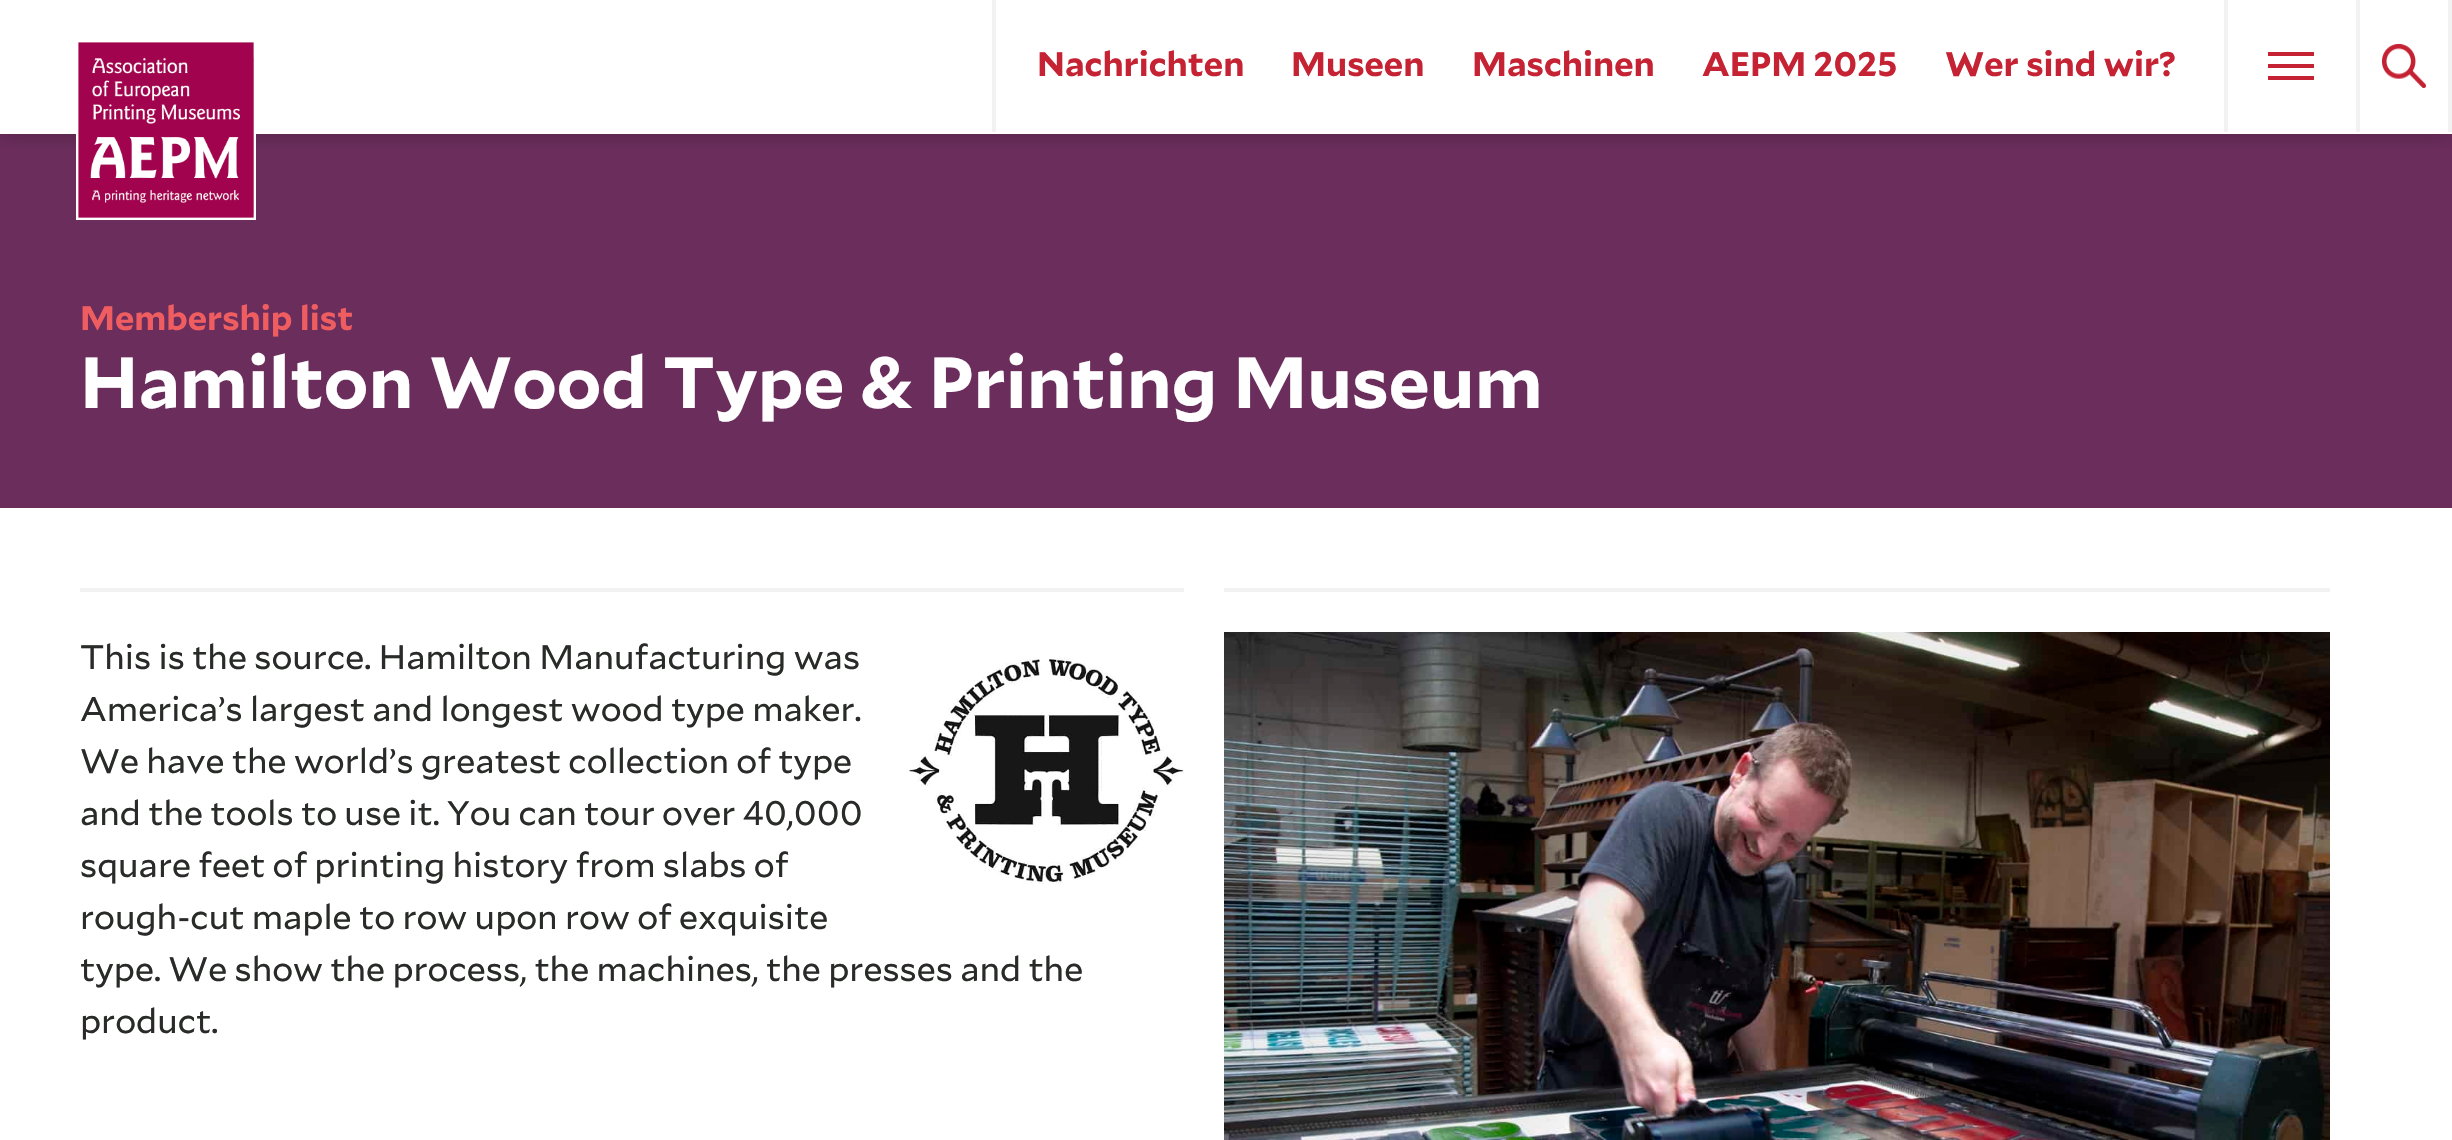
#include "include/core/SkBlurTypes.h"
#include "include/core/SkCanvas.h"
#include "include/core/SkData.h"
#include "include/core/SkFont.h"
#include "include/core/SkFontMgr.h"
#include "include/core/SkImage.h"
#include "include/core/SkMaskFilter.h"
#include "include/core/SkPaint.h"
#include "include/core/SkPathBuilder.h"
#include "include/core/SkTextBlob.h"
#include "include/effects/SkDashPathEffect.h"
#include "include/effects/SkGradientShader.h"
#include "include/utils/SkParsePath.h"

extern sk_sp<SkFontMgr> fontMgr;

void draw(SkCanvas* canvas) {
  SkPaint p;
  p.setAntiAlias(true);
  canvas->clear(SK_ColorWHITE);
  p.setColor(SkColorSetRGB(107, 45, 92));
  canvas->drawRect(SkRect::MakeLTRB(0, 134, 2452, 508), p);
  canvas->save();
  canvas->clipRect(SkRect::MakeLTRB(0, 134, 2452, 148));
  p.setColor(SkColorSetARGB(64, 0, 0, 0));
  p.setMaskFilter(SkMaskFilter::MakeBlur(kNormal_SkBlurStyle, 10));
  canvas->drawRect(SkRect::MakeLTRB(0, 0, 2452, 134), p);
  p.setMaskFilter(nullptr);
  canvas->restore();
  canvas->drawImageRect(SkImages::DeferredFromEncodedData(SkData::MakeFromFileName("images/1.png")), SkRect::MakeLTRB(76, 42, 256, 220), SkSamplingOptions());
  p.setColor(SkColorSetRGB(242, 242, 242));
  canvas->drawRect(SkRect::MakeLTRB(992, 0, 996, 132), p);
  canvas->drawRect(SkRect::MakeLTRB(2224, 0, 2228, 132), p);
  p.setColor(SkColorSetRGB(197, 34, 51));
  canvas->drawRect(SkRect::MakeLTRB(2268, 64, 2314, 68), p);
  canvas->drawRect(SkRect::MakeLTRB(2268, 52, 2314, 56), p);
  canvas->drawRect(SkRect::MakeLTRB(2268, 76, 2314, 80), p);
  canvas->drawImageRect(SkImages::DeferredFromEncodedData(SkData::MakeFromFileName("images/2.png")), SkRect::MakeLTRB(2382, 44, 2426, 88), SkSamplingOptions());
  p.setColor(SkColorSetRGB(242, 242, 242));
  canvas->drawRect(SkRect::MakeLTRB(2448, 0, 2452, 132), p);
  canvas->drawRect(SkRect::MakeLTRB(2356, 0, 2360, 132), p);
  canvas->drawRect(SkRect::MakeLTRB(80, 588, 1184, 592), p);
  canvas->drawImageRect(SkImages::DeferredFromEncodedData(SkData::MakeFromFileName("images/3.png")), SkRect::MakeLTRB(909, 658, 1184, 884), SkSamplingOptions());
  canvas->drawRect(SkRect::MakeLTRB(1224, 588, 2330, 592), p);
  canvas->drawImageRect(SkImages::DeferredFromEncodedData(SkData::MakeFromFileName("images/4.png")), SkRect::MakeLTRB(1224, 632, 2330, 1140), SkSamplingOptions());
  SkFont font1(fontMgr->matchFamilyStyle("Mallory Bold", SkFontStyle::Bold()), 34);
  font1.setSubpixel(true);
  p.setColor(SkColorSetRGB(197, 34, 51));
  canvas->drawString("Nachrichten", 1037, 76, font1, p);
  canvas->drawString("Museen", 1291, 76, font1, p);
  canvas->drawString("Maschinen", 1472, 76, font1, p);
  canvas->drawString("AEPM 2025", 1702, 76, font1, p);
  canvas->drawString("Wer sind wir?", 1945, 76, font1, p);
  p.setColor(SkColorSetRGB(239, 93, 96));
  canvas->drawString("Membership list", 80, 330, font1, p);
  SkFont font2(fontMgr->matchFamilyStyle("Mallory Bold", SkFontStyle::Bold()), 72);
  font2.setSubpixel(true);
  p.setColor(SK_ColorWHITE);
  canvas->drawString("Hamilton Wood Type & Printing Museum", 80, 408, font2, p);
  SkFont font3(fontMgr->matchFamilyStyle("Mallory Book", SkFontStyle::Normal()), 34);
  font3.setSubpixel(true);
  p.setColor(SkColorSetRGB(40, 43, 40));
  canvas->drawString("This is the source. Hamilton Manufacturing was", 80, 669, font3, p);
  canvas->drawString("America’s largest and longest wood type maker.", 80, 721, font3, p);
  canvas->drawString("We have the world’s greatest collection of type", 80, 773, font3, p);
  canvas->drawString("and the tools to use it. You can tour over 40,000", 80, 825, font3, p);
  canvas->drawString("square feet of printing history from slabs of", 80, 877, font3, p);
  canvas->drawString("rough-cut maple to row upon row of exquisite", 80, 929, font3, p);
  canvas->drawString("type. We show the process, the machines, the presses and the", 80, 981, font3, p);
  canvas->drawString("product.", 80, 1033, font3, p);
}
